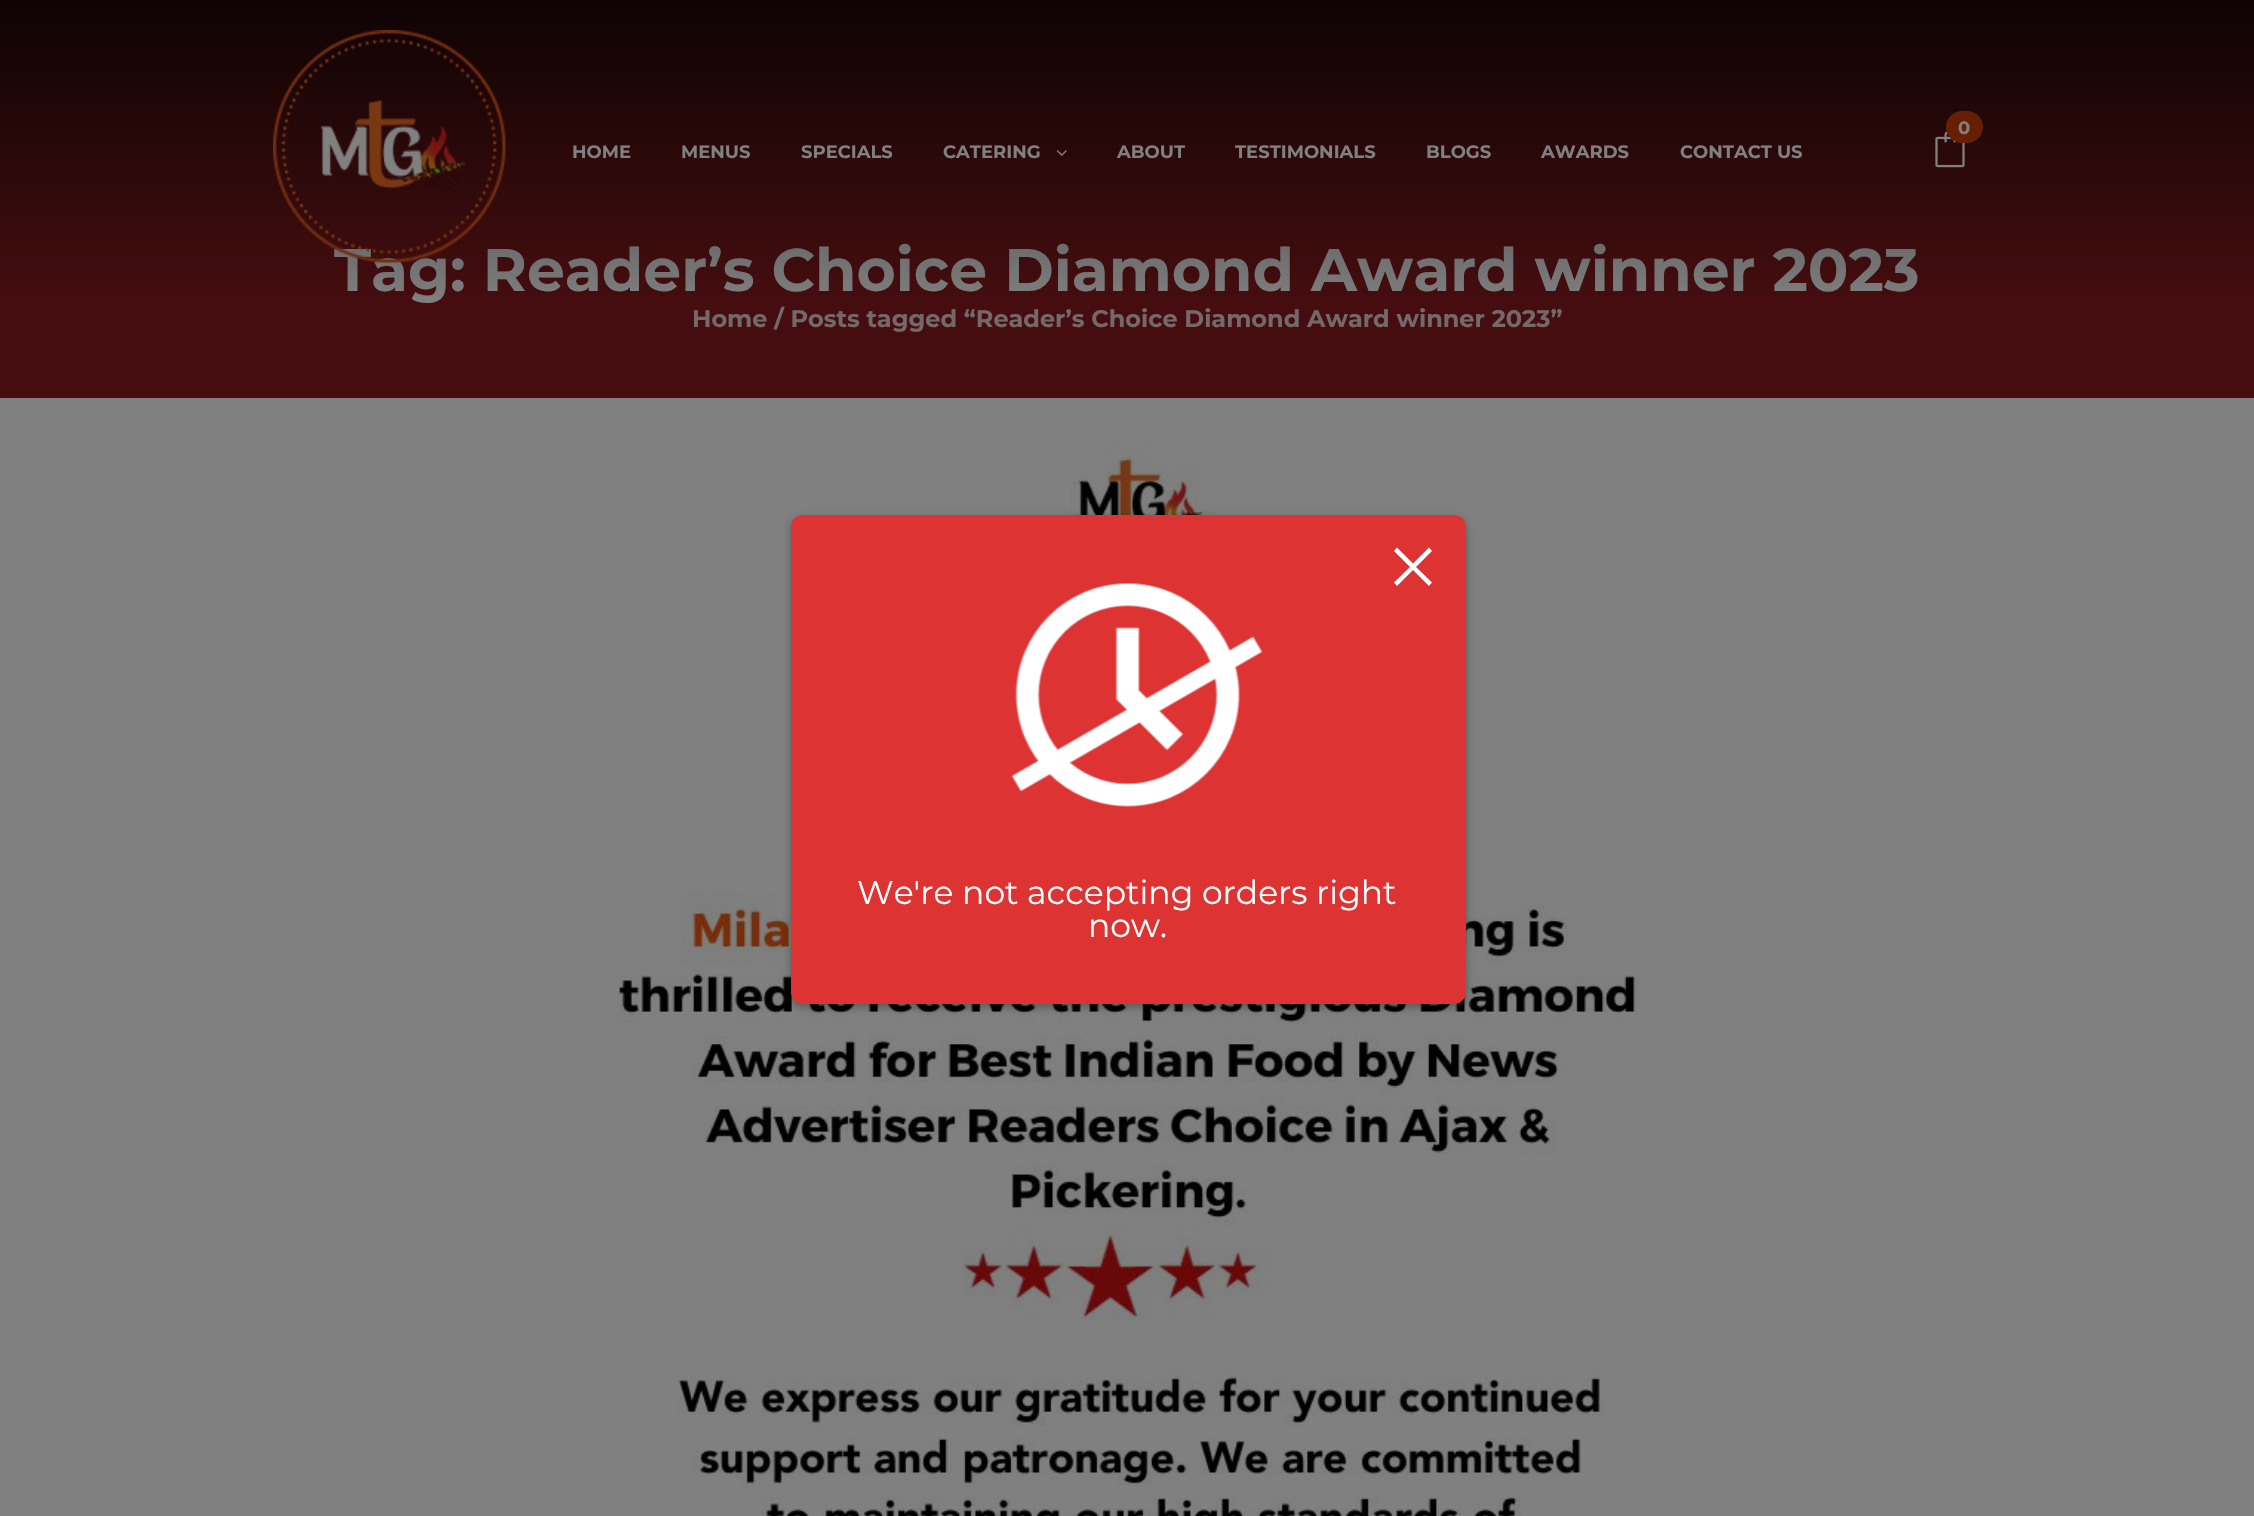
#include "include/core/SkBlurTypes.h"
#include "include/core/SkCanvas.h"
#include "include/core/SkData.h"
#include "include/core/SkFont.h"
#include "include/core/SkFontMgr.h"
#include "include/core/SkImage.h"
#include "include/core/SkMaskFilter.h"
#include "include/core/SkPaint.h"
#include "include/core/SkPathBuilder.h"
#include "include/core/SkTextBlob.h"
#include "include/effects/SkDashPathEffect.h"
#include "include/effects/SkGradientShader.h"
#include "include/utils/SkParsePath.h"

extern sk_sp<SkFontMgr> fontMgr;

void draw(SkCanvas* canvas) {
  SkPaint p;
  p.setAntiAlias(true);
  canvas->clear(SkColorSetRGB(128, 128, 128));
  p.setColor(SkColorSetRGB(69, 13, 15));
  canvas->drawRect(SkRect::MakeLTRB(0, 0, 2254, 398), p);
  canvas->drawImageRect(SkImages::DeferredFromEncodedData(SkData::MakeFromFileName("images/4.png")), SkRect::MakeLTRB(619, 442, 1639, 1516), SkSamplingOptions());
  p.setColor(SkColorSetARGB(77, 0, 0, 0));
  p.setMaskFilter(SkMaskFilter::MakeBlur(kNormal_SkBlurStyle, 4));
  canvas->drawRoundRect(SkRect::MakeLTRB(791, 518, 1466, 1007), 12, 12, p);
  p.setMaskFilter(nullptr);
  p.setColor(SkColorSetRGB(221, 51, 51));
  canvas->drawRoundRect(SkRect::MakeLTRB(791, 515, 1466, 1004), 12, 12, p);
  p.setColor(SK_ColorWHITE);
  canvas->drawPath(SkPathBuilder().moveTo(1413, 563.5f).lineTo(1397, 547.5f).lineTo(1394, 551).lineTo(1410, 567).lineTo(1394, 582.5f).lineTo(1397, 586).lineTo(1413, 570).lineTo(1429, 586).lineTo(1432, 582.5f).lineTo(1416, 567).lineTo(1432, 551).lineTo(1429, 547.5f).close().detach(), p);
  canvas->drawImageRect(SkImages::DeferredFromEncodedData(SkData::MakeFromFileName("images/5.png")), SkRect::MakeLTRB(1011, 583, 1263, 807), SkSamplingOptions());
  SkFont font1(fontMgr->matchFamilyStyle("Montserrat", SkFontStyle::Bold()), 60);
  font1.setSubpixel(true);
  p.setColor(SkColorSetRGB(128, 128, 128));
  canvas->drawString("Tag: Reader’s Choice Diamond Award winner 2023", 334, 291, font1, p);
  {
    const SkColor colors[] = {SkColorSetARGB(204, 0, 0, 0), SkColorSetARGB(0, 0, 0, 0)};
    const float stops[] = {0, 1};
    const SkPoint ends[] = {{1127, 0}, {1127, 305}};
    p.setShader(SkGradientShader::MakeLinear(ends, colors, stops, 2, SkTileMode::kClamp));
    p.setAlpha(255);
  }
  canvas->drawRect(SkRect::MakeLTRB(0, 0, 2254, 297), p);
  canvas->drawImageRect(SkImages::DeferredFromEncodedData(SkData::MakeFromFileName("images/2.png")), SkRect::MakeLTRB(1935, 131, 1965, 168), SkSamplingOptions());
  p.setShader(nullptr);
  p.setColor(SkColorSetRGB(102, 31, 0));
  canvas->drawRoundRect(SkRect::MakeLTRB(1946, 111, 1983, 143), 16, 16, p);
  SkFont font2(fontMgr->matchFamilyStyle("Montserrat", SkFontStyle::Bold()), 18);
  font2.setSubpixel(true);
  p.setColor(SkColorSetRGB(128, 128, 128));
  canvas->drawString("0", 1958, 134, font2, p);
  canvas->drawString("CONTACT US", 1680, 158, font2, p);
  canvas->drawString("AWARDS", 1541, 158, font2, p);
  canvas->drawString("BLOGS", 1426, 158, font2, p);
  canvas->drawString("TESTIMONIALS", 1235, 158, font2, p);
  canvas->drawString("ABOUT", 1117, 158, font2, p);
  canvas->drawImageRect(SkImages::DeferredFromEncodedData(SkData::MakeFromFileName("images/3.png")), SkRect::MakeLTRB(1056, 150, 1067, 156), SkSamplingOptions());
  canvas->drawString("CATERING", 943, 158, font2, p);
  canvas->drawString("SPECIALS", 801, 158, font2, p);
  canvas->drawString("MENUS", 681, 158, font2, p);
  canvas->drawString("HOME", 572, 158, font2, p);
  canvas->drawImageRect(SkImages::DeferredFromEncodedData(SkData::MakeFromFileName("images/1.png")), SkRect::MakeLTRB(273, 30, 506, 263), SkSamplingOptions());
  SkFont font3(fontMgr->matchFamilyStyle("Montserrat", SkFontStyle::Bold()), 24);
  font3.setSubpixel(true);
  p.setColor(SkColorSetRGB(116, 105, 105));
  canvas->drawString("Home / Posts tagged “Reader’s Choice Diamond Award winner 2023”", 692, 327, font3, p);
  SkFont font4(fontMgr->matchFamilyStyle("Montserrat", SkFontStyle::Normal()), 33);
  font4.setSubpixel(true);
  p.setColor(SK_ColorWHITE);
  canvas->drawString("We're not accepting orders right", 857, 904, font4, p);
  canvas->drawString("now.", 1088, 937, font4, p);
}
